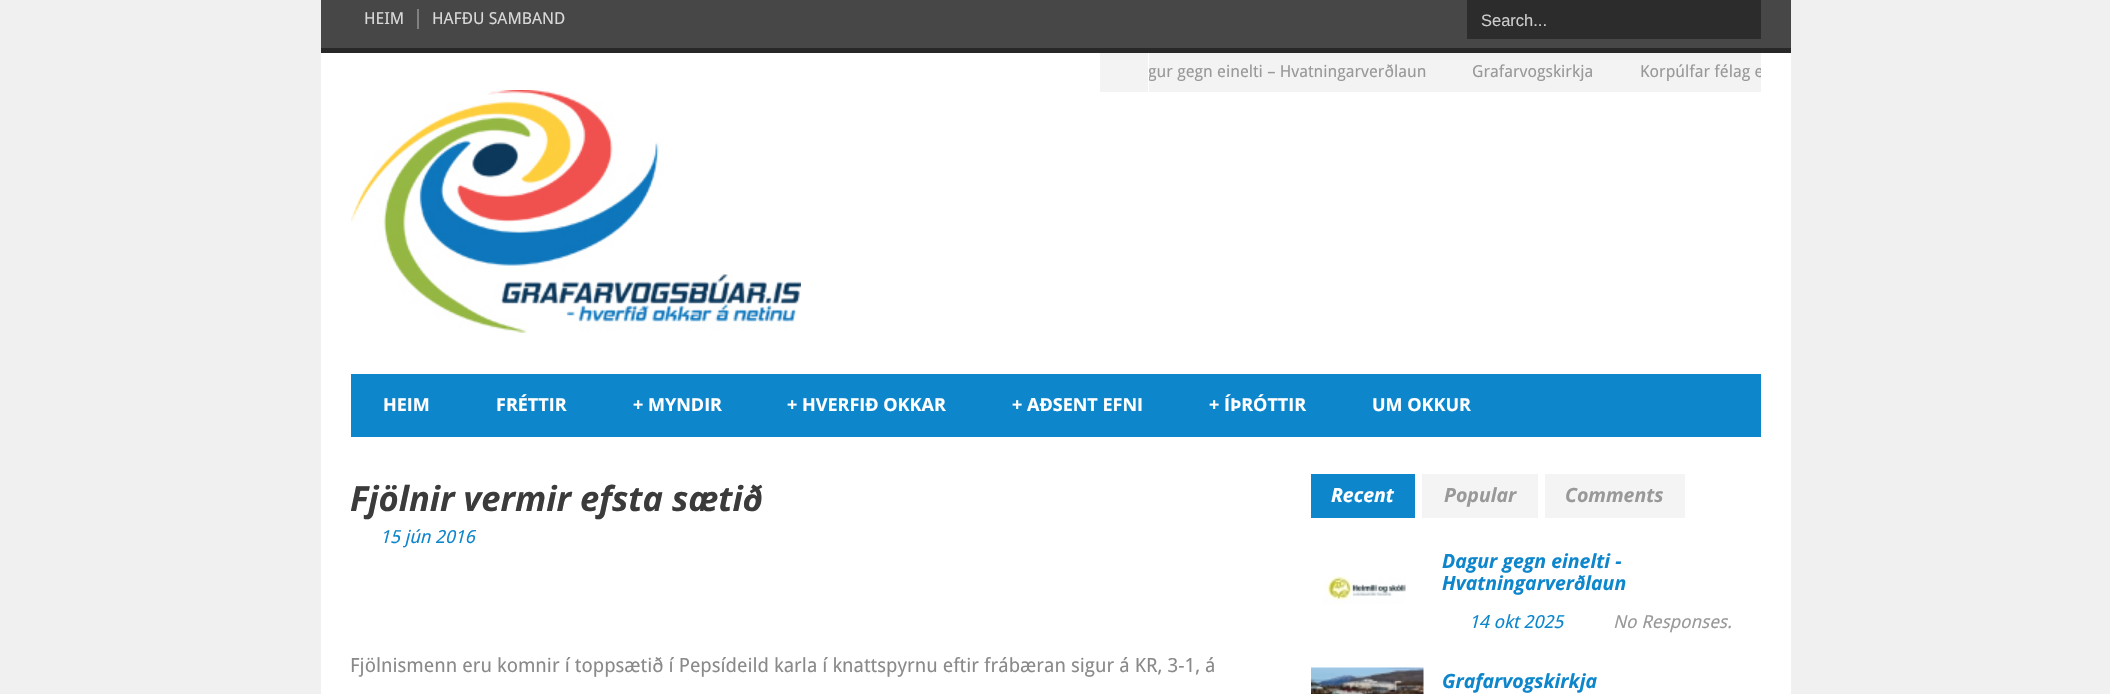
#include "include/core/SkBlurTypes.h"
#include "include/core/SkCanvas.h"
#include "include/core/SkData.h"
#include "include/core/SkFont.h"
#include "include/core/SkFontMgr.h"
#include "include/core/SkImage.h"
#include "include/core/SkMaskFilter.h"
#include "include/core/SkPaint.h"
#include "include/core/SkPathBuilder.h"
#include "include/core/SkTextBlob.h"
#include "include/effects/SkDashPathEffect.h"
#include "include/effects/SkGradientShader.h"
#include "include/utils/SkParsePath.h"

extern sk_sp<SkFontMgr> fontMgr;

void draw(SkCanvas* canvas) {
  SkPaint p;
  p.setAntiAlias(true);
  canvas->clear(SkColorSetRGB(240, 240, 240));
  p.setColor(SkColorSetRGB(71, 71, 71));
  canvas->drawRect(SkRect::MakeLTRB(321, 0, 1791, 48), p);
  p.setColor(SkColorSetRGB(128, 128, 128));
  canvas->drawRect(SkRect::MakeLTRB(417, 9, 419, 29), p);
  p.setColor(SkColorSetRGB(44, 44, 44));
  canvas->drawRect(SkRect::MakeLTRB(1467, 0, 1761, 39), p);
  p.setColor(SkColorSetRGB(40, 40, 40));
  canvas->drawRect(SkRect::MakeLTRB(321, 48, 1791, 53), p);
  p.setColor(SK_ColorWHITE);
  canvas->drawRect(SkRect::MakeLTRB(321, 53, 1791, 694), p);
  p.setColor(SkColorSetRGB(243, 243, 243));
  canvas->drawRect(SkRect::MakeLTRB(1100, 53, 1148, 92), p);
  canvas->drawRect(SkRect::MakeLTRB(1149, 53, 1761, 92), p);
  canvas->drawImageRect(SkImages::DeferredFromEncodedData(SkData::MakeFromFileName("images/1.png")), SkRect::MakeLTRB(351, 90, 801, 333), SkSamplingOptions());
  p.setColor(SkColorSetRGB(13, 134, 204));
  canvas->drawRect(SkRect::MakeLTRB(351, 374, 1761, 437), p);
  canvas->drawRect(SkRect::MakeLTRB(1311, 474, 1415, 518), p);
  p.setColor(SkColorSetRGB(244, 244, 244));
  canvas->drawRect(SkRect::MakeLTRB(1422, 474, 1538, 518), p);
  canvas->drawRect(SkRect::MakeLTRB(1545, 474, 1685, 518), p);
  canvas->drawImageRect(SkImages::DeferredFromEncodedData(SkData::MakeFromFileName("images/2.png")), SkRect::MakeLTRB(1323, 576, 1406, 604), SkSamplingOptions());
  canvas->drawImageRect(SkImages::DeferredFromEncodedData(SkData::MakeFromFileName("images/3.png")), SkRect::MakeLTRB(1311, 667, 1424, 694), SkSamplingOptions());
  SkFont font1(fontMgr->matchFamilyStyle("Droid Sans", SkFontStyle::Normal()), 16.5f);
  font1.setSubpixel(true);
  p.setColor(SkColorSetRGB(217, 217, 217));
  canvas->drawString("HEIM", 364, 24, font1, p);
  canvas->drawString("HAFÐU SAMBAND", 432, 24, font1, p);
  SkFont font2(fontMgr->matchFamilyStyle("Liberation Sans", SkFontStyle::Normal()), 16.5f);
  font2.setSubpixel(true);
  p.setColor(SkColorSetRGB(204, 204, 204));
  canvas->drawString("Search...", 1481, 26, font2, p);
  canvas->save();
  canvas->clipRect(SkRect::MakeLTRB(1149, 53, 1761, 92));
  p.setColor(SkColorSetRGB(153, 153, 153));
  canvas->drawString("gur gegn einelti – Hvatningarverðlaun", 1148, 77, font1, p);
  canvas->restore();
  canvas->drawString("Grafarvogskirkja", 1472, 77, font1, p);
  canvas->save();
  canvas->clipRect(SkRect::MakeLTRB(1149, 53, 1761, 92));
  canvas->drawString("Korpúlfar félag e", 1640, 77, font1, p);
  canvas->restore();
  SkFont font3(fontMgr->matchFamilyStyle("Open Sans", SkFontStyle::Bold()), 18);
  font3.setSubpixel(true);
  p.setColor(SK_ColorWHITE);
  canvas->drawString("HEIM", 383, 411, font3, p);
  canvas->drawString("FRÉTTIR", 496, 411, font3, p);
  canvas->drawString("+ MYNDIR", 633, 411, font3, p);
  canvas->drawString("+ HVERFIÐ OKKAR", 787, 411, font3, p);
  canvas->drawString("+ AÐSENT EFNI", 1012, 411, font3, p);
  canvas->drawString("+ ÍÞRÓTTIR", 1209, 411, font3, p);
  canvas->drawString("UM OKKUR", 1372, 411, font3, p);
  SkFont font4(fontMgr->matchFamilyStyle("Open Sans", SkFontStyle::BoldItalic()), 34.5f);
  font4.setSubpixel(true);
  p.setColor(SkColorSetRGB(59, 59, 59));
  canvas->drawString("Fjölnir vermir efsta sætið", 350, 511, font4, p);
  SkFont font5(fontMgr->matchFamilyStyle("Droid Sans", SkFontStyle::Italic()), 18);
  font5.setSubpixel(true);
  p.setColor(SkColorSetRGB(13, 134, 204));
  canvas->drawString("15 jún 2016", 380, 543, font5, p);
  SkFont font6(fontMgr->matchFamilyStyle("Droid Sans", SkFontStyle::Normal()), 19.5f);
  font6.setSubpixel(true);
  p.setColor(SkColorSetRGB(138, 138, 138));
  canvas->drawString("Fjölnismenn eru komnir í toppsætið í Pepsídeild karla í knattspyrnu eftir frábæran sigur á KR, 3-1, á", 350, 672, font6, p);
  SkFont font7(fontMgr->matchFamilyStyle("Open Sans", SkFontStyle::BoldItalic()), 19.5f);
  font7.setSubpixel(true);
  p.setColor(SK_ColorWHITE);
  canvas->drawString("Recent", 1331, 502, font7, p);
  p.setColor(SkColorSetRGB(153, 153, 153));
  canvas->drawString("Popular", 1444, 502, font7, p);
  canvas->drawString("Comments", 1565, 502, font7, p);
  p.setColor(SkColorSetRGB(13, 134, 204));
  canvas->drawString("Dagur gegn einelti -", 1442, 568, font7, p);
  canvas->drawString("Hvatningarverðlaun", 1442, 590, font7, p);
  canvas->drawString("14 okt 2025", 1469, 628, font5, p);
  p.setColor(SkColorSetRGB(153, 153, 153));
  canvas->drawString("No Responses.", 1613, 628, font5, p);
  p.setColor(SkColorSetRGB(13, 134, 204));
  canvas->drawString("Grafarvogskirkja", 1442, 688, font7, p);
}
